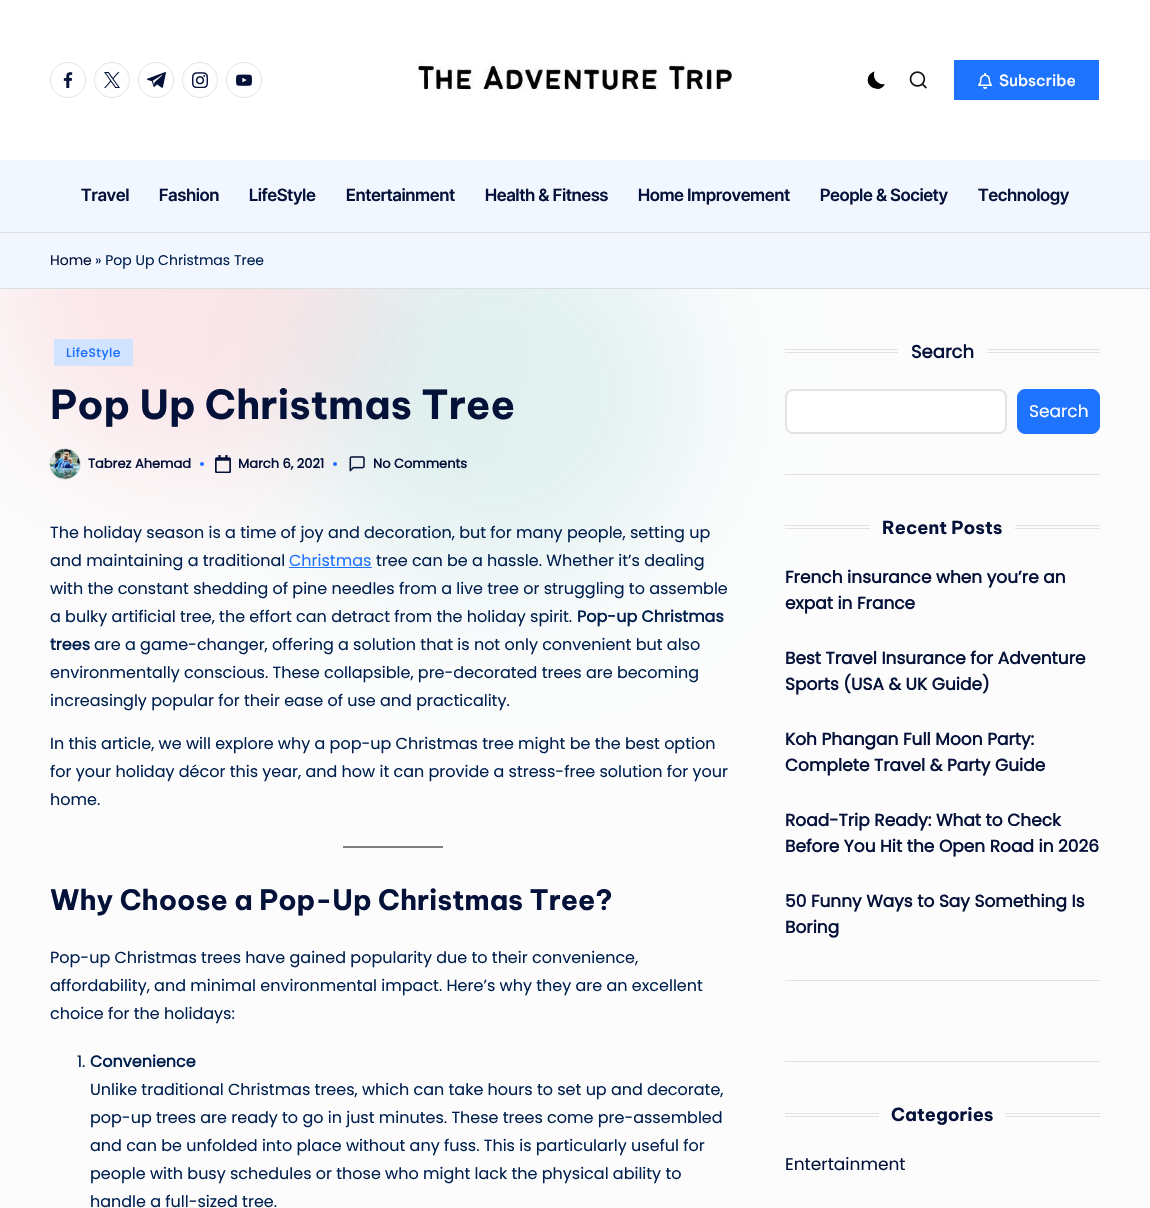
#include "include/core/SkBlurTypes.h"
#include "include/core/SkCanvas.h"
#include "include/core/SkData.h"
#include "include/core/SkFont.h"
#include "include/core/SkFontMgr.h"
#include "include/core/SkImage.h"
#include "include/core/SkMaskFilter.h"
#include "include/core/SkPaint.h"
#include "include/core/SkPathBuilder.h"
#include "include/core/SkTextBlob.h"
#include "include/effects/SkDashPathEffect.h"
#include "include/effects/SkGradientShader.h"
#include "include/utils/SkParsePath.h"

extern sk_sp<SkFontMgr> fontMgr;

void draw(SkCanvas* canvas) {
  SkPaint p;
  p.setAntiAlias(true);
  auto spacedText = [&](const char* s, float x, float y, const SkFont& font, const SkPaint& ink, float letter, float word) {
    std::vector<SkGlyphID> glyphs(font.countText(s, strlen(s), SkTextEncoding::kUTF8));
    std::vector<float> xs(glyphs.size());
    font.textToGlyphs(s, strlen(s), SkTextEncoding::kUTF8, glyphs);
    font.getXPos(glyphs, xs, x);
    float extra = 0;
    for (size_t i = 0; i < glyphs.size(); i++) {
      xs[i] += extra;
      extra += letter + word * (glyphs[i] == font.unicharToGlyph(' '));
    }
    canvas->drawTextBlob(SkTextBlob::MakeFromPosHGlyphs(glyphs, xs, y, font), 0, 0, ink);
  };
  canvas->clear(SkColorSetRGB(252, 252, 252));
  p.setColor(SkColorSetRGB(251, 230, 233));
  p.setMaskFilter(SkMaskFilter::MakeBlur(kNormal_SkBlurStyle, 64));
  canvas->drawRoundRect(SkRect::MakeLTRB(0, 90, 384, 474), 192, 192, p);
  p.setMaskFilter(nullptr);
  p.setColor(SkColorSetARGB(26, 4, 134, 139));
  p.setMaskFilter(SkMaskFilter::MakeBlur(kNormal_SkBlurStyle, 64));
  canvas->drawRoundRect(SkRect::MakeLTRB(304, 200, 688, 584), 192, 192, p);
  p.setMaskFilter(nullptr);
  p.setColor(SK_ColorWHITE);
  canvas->drawRect(SkRect::MakeLTRB(0, 0, 1150, 160), p);
  p.setStyle(SkPaint::kStroke_Style);
  p.setStrokeWidth(1);
  p.setColor(SkColorSetRGB(227, 227, 227));
  canvas->drawCircle(68, 80, 17.5f, p);
  canvas->drawImageRect(SkImages::DeferredFromEncodedData(SkData::MakeFromFileName("images/1.png")), SkRect::MakeLTRB(63, 72, 73, 88), SkSamplingOptions());
  canvas->drawCircle(112, 80, 17.5f, p);
  canvas->drawImageRect(SkImages::DeferredFromEncodedData(SkData::MakeFromFileName("images/2.png")), SkRect::MakeLTRB(104, 72, 120, 88), SkSamplingOptions());
  canvas->drawCircle(156, 80, 17.5f, p);
  canvas->drawImageRect(SkImages::DeferredFromEncodedData(SkData::MakeFromFileName("images/3.png")), SkRect::MakeLTRB(147, 72, 166, 88), SkSamplingOptions());
  canvas->drawCircle(200, 80, 17.5f, p);
  canvas->drawImageRect(SkImages::DeferredFromEncodedData(SkData::MakeFromFileName("images/4.png")), SkRect::MakeLTRB(192, 72, 208, 88), SkSamplingOptions());
  canvas->drawCircle(244, 80, 17.5f, p);
  canvas->drawImageRect(SkImages::DeferredFromEncodedData(SkData::MakeFromFileName("images/5.png")), SkRect::MakeLTRB(236, 74, 252, 86), SkSamplingOptions());
  canvas->drawImageRect(SkImages::DeferredFromEncodedData(SkData::MakeFromFileName("images/6.png")), SkRect::MakeLTRB(417, 62, 734, 91), SkSamplingOptions());
  p.setStyle(SkPaint::kFill_Style);
  p.setColor(SK_ColorBLACK);
  canvas->drawPath(SkPathBuilder().moveTo(885, 84).cubicTo(878, 85.5f, 872, 78.5f, 874.5f, 71.5f).cubicTo(872.5f, 72, 870.5f, 73.5f, 869, 75.5f).cubicTo(863, 86.5f, 880, 94.5f, 885, 84).close().detach(), p);
  canvas->drawImageRect(SkImages::DeferredFromEncodedData(SkData::MakeFromFileName("images/7.png")), SkRect::MakeLTRB(909, 71, 927, 89), SkSamplingOptions());
  p.setColor(SkColorSetRGB(30, 115, 255));
  canvas->drawRect(SkRect::MakeLTRB(954, 60, 1099, 100), p);
  canvas->drawImageRect(SkImages::DeferredFromEncodedData(SkData::MakeFromFileName("images/8.png")), SkRect::MakeLTRB(978, 73, 992, 89), SkSamplingOptions());
  p.setColor(SkColorSetRGB(241, 246, 255));
  canvas->drawRect(SkRect::MakeLTRB(0, 160, 1150, 232), p);
  canvas->drawRect(SkRect::MakeLTRB(0, 233, 1150, 288), p);
  p.setColor(SkColorSetRGB(219, 222, 227));
  canvas->drawRect(SkRect::MakeLTRB(0, 232, 1150, 233), p);
  canvas->drawRect(SkRect::MakeLTRB(0, 288, 1150, 289), p);
  p.setColor(SkColorSetRGB(210, 227, 255));
  canvas->drawRect(SkRect::MakeLTRB(54, 339, 133, 366), p);
  canvas->drawImageRect(SkImages::DeferredFromEncodedData(SkData::MakeFromFileName("images/9.png")), SkRect::MakeLTRB(50, 449, 80, 479), SkSamplingOptions());
  p.setStyle(SkPaint::kStroke_Style);
  p.setColor(SkColorSetARGB(102, 185, 185, 185));
  canvas->drawCircle(65, 464, 15.5f, p);
  p.setStyle(SkPaint::kFill_Style);
  p.setColor(SkColorSetRGB(30, 115, 255));
  canvas->drawCircle(202, 464, 2, p);
  canvas->drawImageRect(SkImages::DeferredFromEncodedData(SkData::MakeFromFileName("images/10.png")), SkRect::MakeLTRB(215, 455, 231, 473), SkSamplingOptions());
  canvas->drawCircle(335, 464, 2, p);
  canvas->drawImageRect(SkImages::DeferredFromEncodedData(SkData::MakeFromFileName("images/11.png")), SkRect::MakeLTRB(349, 456, 365, 472), SkSamplingOptions());
  canvas->drawRect(SkRect::MakeLTRB(289, 567, 372, 568), p);
  p.setColor(SkColorSetRGB(128, 128, 128));
  canvas->drawRect(SkRect::MakeLTRB(343, 846, 443, 848), p);
  p.setColor(SkColorSetRGB(225, 225, 225));
  canvas->drawRect(SkRect::MakeLTRB(785, 474, 1100, 475), p);
  canvas->drawRect(SkRect::MakeLTRB(785, 349, 898, 350), p);
  canvas->drawRect(SkRect::MakeLTRB(785, 352, 898, 353), p);
  canvas->drawRect(SkRect::MakeLTRB(987, 349, 1100, 350), p);
  canvas->drawRect(SkRect::MakeLTRB(987, 352, 1100, 353), p);
  p.setColor(SK_ColorWHITE);
  canvas->drawRoundRect(SkRect::MakeLTRB(786, 390, 1006, 433), 7, 7, p);
  p.setStyle(SkPaint::kStroke_Style);
  p.setStrokeWidth(2);
  p.setColor(SkColorSetRGB(227, 227, 227));
  canvas->drawRoundRect(SkRect::MakeLTRB(786, 390, 1006, 433), 7, 7, p);
  p.setStyle(SkPaint::kFill_Style);
  p.setColor(SkColorSetRGB(30, 115, 255));
  canvas->drawRoundRect(SkRect::MakeLTRB(1017.5f, 389.5f, 1099.5f, 433.5f), 7.5f, 7.5f, p);
  p.setStyle(SkPaint::kStroke_Style);
  p.setStrokeWidth(1);
  canvas->drawRoundRect(SkRect::MakeLTRB(1017.5f, 389.5f, 1099.5f, 433.5f), 7.5f, 7.5f, p);
  p.setStyle(SkPaint::kFill_Style);
  p.setColor(SkColorSetRGB(225, 225, 225));
  canvas->drawRect(SkRect::MakeLTRB(785, 980, 1100, 981), p);
  canvas->drawRect(SkRect::MakeLTRB(785, 525, 870, 526), p);
  canvas->drawRect(SkRect::MakeLTRB(785, 528, 870, 529), p);
  canvas->drawRect(SkRect::MakeLTRB(1015, 525, 1100, 526), p);
  canvas->drawRect(SkRect::MakeLTRB(1015, 528, 1100, 529), p);
  canvas->drawRect(SkRect::MakeLTRB(785, 1061, 1100, 1062), p);
  canvas->drawRect(SkRect::MakeLTRB(785, 1113, 879, 1114), p);
  canvas->drawRect(SkRect::MakeLTRB(785, 1116, 879, 1117), p);
  canvas->drawRect(SkRect::MakeLTRB(1006, 1113, 1100, 1114), p);
  canvas->drawRect(SkRect::MakeLTRB(1006, 1116, 1100, 1117), p);
  SkFont font1(fontMgr->matchFamilyStyle("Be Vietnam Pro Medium", SkFontStyle(500, SkFontStyle::kNormal_Width, SkFontStyle::kUpright_Slant)), 15.5f);
  font1.setSubpixel(true);
  p.setColor(SK_ColorWHITE);
  canvas->drawString("Subscribe", 999, 86, font1, p);
  SkFont font2(fontMgr->matchFamilyStyle("Inter Tight", SkFontStyle(600, SkFontStyle::kNormal_Width, SkFontStyle::kUpright_Slant)), 17);
  font2.setSubpixel(true);
  p.setColor(SkColorSetRGB(4, 17, 57));
  canvas->drawString("Travel", 81, 201, font2, p);
  canvas->drawString("Fashion", 159, 201, font2, p);
  canvas->drawString("LifeStyle", 249, 201, font2, p);
  canvas->drawString("Entertainment", 346, 201, font2, p);
  canvas->drawString("Health & Fitness", 485, 201, font2, p);
  canvas->drawString("Home Improvement", 638, 201, font2, p);
  canvas->drawString("People & Society", 820, 201, font2, p);
  canvas->drawString("Technology", 978, 201, font2, p);
  SkFont font3(fontMgr->matchFamilyStyle("Poppins", SkFontStyle::Normal()), 14);
  font3.setSubpixel(true);
  canvas->drawString("Home", 50, 265, font3, p);
  p.setColor(SkColorSetRGB(0, 32, 80));
  canvas->drawString("» Pop Up Christmas Tree", 95, 265, font3, p);
  SkFont font4(fontMgr->matchFamilyStyle("Poppins", SkFontStyle::Bold()), 12);
  font4.setSubpixel(true);
  p.setColor(SkColorSetRGB(30, 115, 255));
  spacedText("LifeStyle", 66, 357, font4, p, 0.75f, 0);
  SkFont font5(fontMgr->matchFamilyStyle("Be Vietnam Pro", SkFontStyle::Bold()), 40);
  font5.setSubpixel(true);
  p.setColor(SkColorSetRGB(4, 17, 57));
  canvas->drawString("Pop Up Christmas Tree", 50, 419, font5, p);
  SkFont font6(fontMgr->matchFamilyStyle("Poppins", SkFontStyle::Bold()), 13);
  font6.setSubpixel(true);
  canvas->drawString("Tabrez Ahemad", 88, 468, font6, p);
  canvas->drawString("March 6, 2021", 238, 468, font6, p);
  canvas->drawString("No Comments", 373, 468, font6, p);
  SkFont font7(fontMgr->matchFamilyStyle("Poppins", SkFontStyle::Normal()), 16);
  font7.setSubpixel(true);
  p.setColor(SkColorSetRGB(0, 32, 80));
  canvas->drawString("The holiday season is a time of joy and decoration, but for many people, setting up", 50, 538, font7, p);
  canvas->drawString("and maintaining a traditional", 50, 566, font7, p);
  p.setColor(SkColorSetRGB(30, 115, 255));
  canvas->drawString("Christmas", 289, 566, font7, p);
  p.setColor(SkColorSetRGB(0, 32, 80));
  canvas->drawString("tree can be a hassle. Whether it’s dealing", 376, 566, font7, p);
  canvas->drawString("with the constant shedding of pine needles from a live tree or struggling to assemble", 50, 594, font7, p);
  canvas->drawString("a bulky artificial tree, the effort can detract from the holiday spirit.", 50, 622, font7, p);
  SkFont font8(fontMgr->matchFamilyStyle("Poppins", SkFontStyle::Bold()), 16);
  font8.setSubpixel(true);
  canvas->drawString("Pop-up Christmas", 577, 622, font8, p);
  canvas->drawString("trees", 50, 650, font8, p);
  canvas->drawString("are a game-changer, offering a solution that is not only convenient but also", 94, 650, font7, p);
  canvas->drawString("environmentally conscious. These collapsible, pre-decorated trees are becoming", 50, 678, font7, p);
  canvas->drawString("increasingly popular for their ease of use and practicality.", 50, 706, font7, p);
  canvas->drawString("In this article, we will explore why a pop-up Christmas tree might be the best option", 50, 749, font7, p);
  canvas->drawString("for your holiday décor this year, and how it can provide a stress-free solution for your", 50, 777, font7, p);
  canvas->drawString("home.", 50, 805, font7, p);
  SkFont font9(fontMgr->matchFamilyStyle("Be Vietnam Pro", SkFontStyle::Bold()), 28);
  font9.setSubpixel(true);
  p.setColor(SkColorSetRGB(4, 17, 57));
  canvas->drawString("Why Choose a Pop-Up Christmas Tree?", 50, 910, font9, p);
  p.setColor(SkColorSetRGB(0, 32, 80));
  canvas->drawString("Pop-up Christmas trees have gained popularity due to their convenience,", 50, 963, font7, p);
  canvas->drawString("affordability, and minimal environmental impact. Here’s why they are an excellent", 50, 991, font7, p);
  canvas->drawString("choice for the holidays:", 50, 1019, font7, p);
  canvas->drawString("1.", 77, 1067, font7, p);
  canvas->drawString("Convenience", 90, 1067, font8, p);
  canvas->drawString("Unlike traditional Christmas trees, which can take hours to set up and decorate,", 90, 1095, font7, p);
  canvas->drawString("pop-up trees are ready to go in just minutes. These trees come pre-assembled", 90, 1123, font7, p);
  canvas->drawString("and can be unfolded into place without any fuss. This is particularly useful for", 90, 1151, font7, p);
  canvas->drawString("people with busy schedules or those who might lack the physical ability to", 90, 1179, font7, p);
  canvas->drawString("handle a full-sized tree.", 90, 1207, font7, p);
  SkFont font10(fontMgr->matchFamilyStyle("Poppins", SkFontStyle::Bold()), 18);
  font10.setSubpixel(true);
  p.setColor(SkColorSetRGB(4, 17, 57));
  canvas->drawString("Search", 911, 358, font10, p);
  SkFont font11(fontMgr->matchFamilyStyle("Poppins", SkFontStyle::Normal()), 17);
  font11.setSubpixel(true);
  p.setColor(SK_ColorWHITE);
  canvas->drawString("Search", 1029, 417, font11, p);
  SkFont font12(fontMgr->matchFamilyStyle("Be Vietnam Pro", SkFontStyle::Bold()), 18);
  font12.setSubpixel(true);
  p.setColor(SkColorSetRGB(4, 17, 57));
  canvas->drawString("Recent Posts", 882, 534, font12, p);
  SkFont font13(fontMgr->matchFamilyStyle("Poppins", SkFontStyle::Bold()), 17);
  font13.setSubpixel(true);
  canvas->drawString("French insurance when you’re an", 785, 583, font13, p);
  canvas->drawString("expat in France", 785, 609, font13, p);
  canvas->drawString("Best Travel Insurance for Adventure", 785, 664, font13, p);
  canvas->drawString("Sports (USA & UK Guide)", 785, 690, font13, p);
  canvas->drawString("Koh Phangan Full Moon Party:", 785, 745, font13, p);
  canvas->drawString("Complete Travel & Party Guide", 785, 771, font13, p);
  canvas->drawString("Road-Trip Ready: What to Check", 785, 826, font13, p);
  canvas->drawString("Before You Hit the Open Road in 2026", 785, 852, font13, p);
  canvas->drawString("50 Funny Ways to Say Something Is", 785, 907, font13, p);
  canvas->drawString("Boring", 785, 933, font13, p);
  canvas->drawString("Categories", 891, 1121, font12, p);
  canvas->drawString("Entertainment", 785, 1170, font11, p);
}
